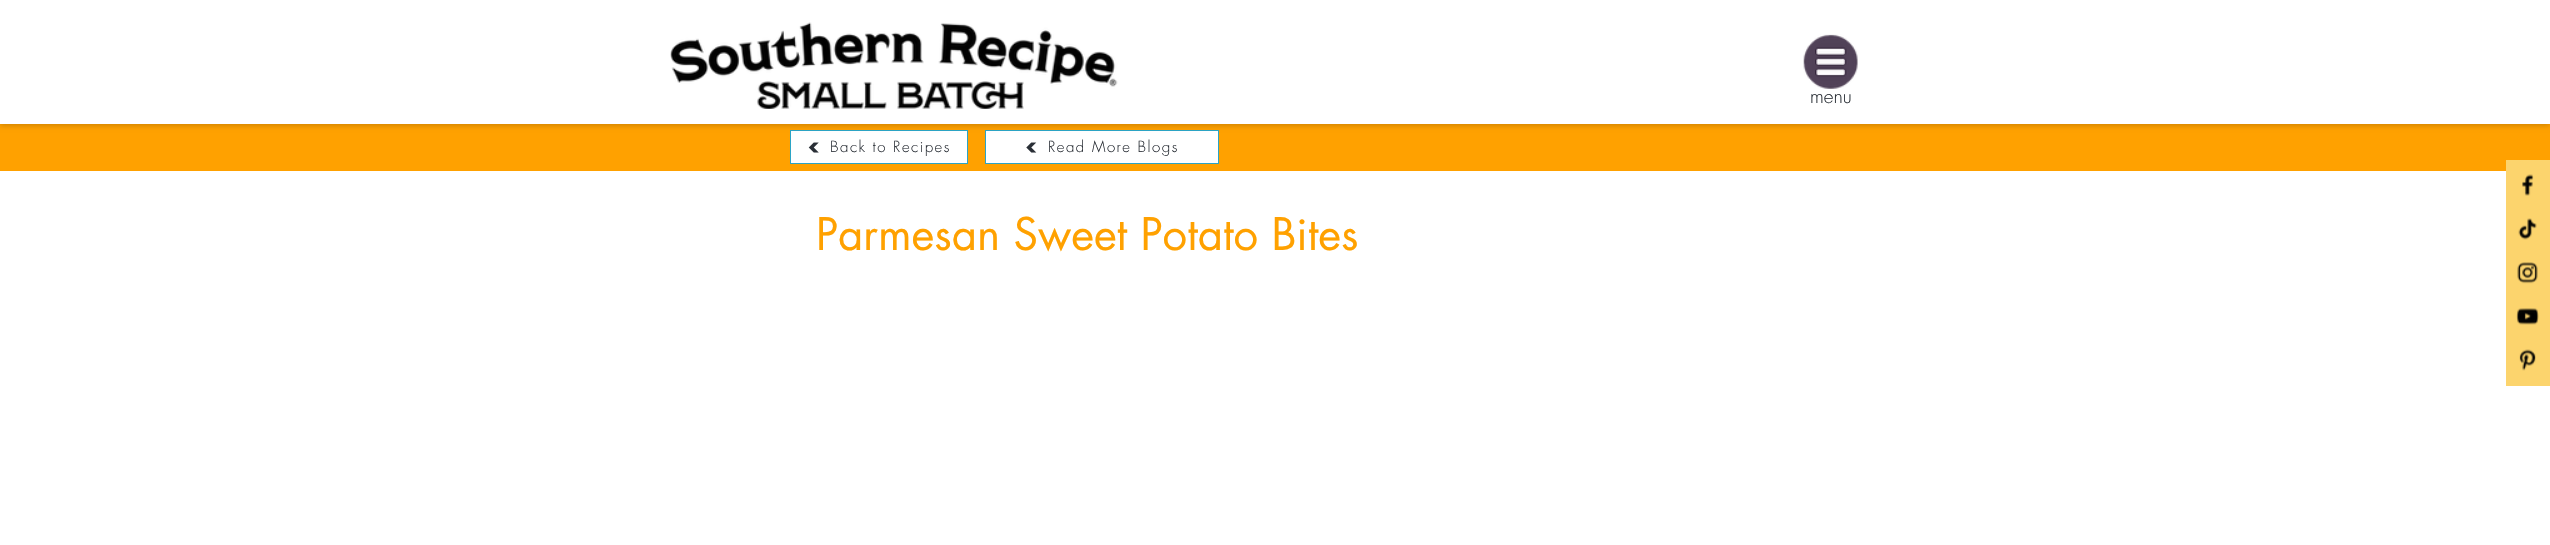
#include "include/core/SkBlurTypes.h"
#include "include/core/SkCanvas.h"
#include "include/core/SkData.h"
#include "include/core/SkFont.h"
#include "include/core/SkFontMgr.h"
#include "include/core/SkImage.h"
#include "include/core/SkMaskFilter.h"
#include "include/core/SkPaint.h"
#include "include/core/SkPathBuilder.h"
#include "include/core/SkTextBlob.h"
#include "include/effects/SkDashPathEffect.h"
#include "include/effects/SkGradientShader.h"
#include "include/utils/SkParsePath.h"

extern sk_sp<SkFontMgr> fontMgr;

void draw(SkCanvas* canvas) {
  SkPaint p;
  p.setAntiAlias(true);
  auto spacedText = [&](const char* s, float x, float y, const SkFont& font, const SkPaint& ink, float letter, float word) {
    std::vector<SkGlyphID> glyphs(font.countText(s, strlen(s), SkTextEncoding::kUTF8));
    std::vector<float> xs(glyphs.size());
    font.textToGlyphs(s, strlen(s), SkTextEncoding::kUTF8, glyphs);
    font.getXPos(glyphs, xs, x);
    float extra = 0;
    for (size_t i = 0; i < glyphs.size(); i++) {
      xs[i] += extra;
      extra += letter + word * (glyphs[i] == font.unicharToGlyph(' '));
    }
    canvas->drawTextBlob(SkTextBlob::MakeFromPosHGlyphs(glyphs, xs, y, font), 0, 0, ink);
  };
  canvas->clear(SK_ColorWHITE);
  p.setColor(SkColorSetRGB(255, 161, 0));
  canvas->drawRect(SkRect::MakeLTRB(0, 124, 2550, 171), p);
  p.setColor(SK_ColorWHITE);
  canvas->drawRect(SkRect::MakeLTRB(790.5f, 130.5f, 967.5f, 163.5f), p);
  p.setStyle(SkPaint::kStroke_Style);
  p.setStrokeWidth(1);
  p.setColor(SkColorSetRGB(43, 164, 198));
  canvas->drawRect(SkRect::MakeLTRB(790.5f, 130.5f, 967.5f, 163.5f), p);
  p.setStyle(SkPaint::kFill_Style);
  p.setColor(SK_ColorWHITE);
  canvas->drawRect(SkRect::MakeLTRB(985.5f, 130.5f, 1218.5f, 163.5f), p);
  p.setStyle(SkPaint::kStroke_Style);
  p.setColor(SkColorSetRGB(43, 164, 198));
  canvas->drawRect(SkRect::MakeLTRB(985.5f, 130.5f, 1218.5f, 163.5f), p);
  p.setStyle(SkPaint::kFill_Style);
  p.setColor(SkColorSetARGB(43, 0, 0, 0));
  p.setMaskFilter(SkMaskFilter::MakeBlur(kNormal_SkBlurStyle, 2.5f));
  canvas->drawRect(SkRect::MakeLTRB(0, 3, 2550, 126), p);
  p.setMaskFilter(nullptr);
  p.setColor(SK_ColorWHITE);
  canvas->drawRect(SkRect::MakeLTRB(0, 0, 2550, 124), p);
  canvas->drawImageRect(SkImages::DeferredFromEncodedData(SkData::MakeFromFileName("images/1.png")), SkRect::MakeLTRB(670, 22, 1118, 109), SkSamplingOptions());
  canvas->drawImageRect(SkImages::DeferredFromEncodedData(SkData::MakeFromFileName("images/2.png")), SkRect::MakeLTRB(1803, 34, 1858, 89), SkSamplingOptions());
  canvas->drawImageRect(SkImages::DeferredFromEncodedData(SkData::MakeFromFileName("images/3.png")), SkRect::MakeLTRB(808, 142, 819, 153), SkSamplingOptions());
  canvas->drawImageRect(SkImages::DeferredFromEncodedData(SkData::MakeFromFileName("images/4.png")), SkRect::MakeLTRB(1026, 142, 1037, 153), SkSamplingOptions());
  p.setColor(SkColorSetRGB(252, 212, 109));
  canvas->drawRect(SkRect::MakeLTRB(2506, 160, 2550, 386), p);
  canvas->drawImageRect(SkImages::DeferredFromEncodedData(SkData::MakeFromFileName("images/5.png")), SkRect::MakeLTRB(2522, 174, 2534, 196), SkSamplingOptions());
  canvas->drawImageRect(SkImages::DeferredFromEncodedData(SkData::MakeFromFileName("images/6.png")), SkRect::MakeLTRB(2518, 218, 2537, 240), SkSamplingOptions());
  canvas->drawImageRect(SkImages::DeferredFromEncodedData(SkData::MakeFromFileName("images/7.png")), SkRect::MakeLTRB(2517, 262, 2538, 284), SkSamplingOptions());
  canvas->drawImageRect(SkImages::DeferredFromEncodedData(SkData::MakeFromFileName("images/8.png")), SkRect::MakeLTRB(2516, 308, 2539, 325), SkSamplingOptions());
  canvas->drawImageRect(SkImages::DeferredFromEncodedData(SkData::MakeFromFileName("images/9.png")), SkRect::MakeLTRB(2519, 349, 2536, 371), SkSamplingOptions());
  SkFont font1(fontMgr->matchFamilyStyle("futura", SkFontStyle(300, SkFontStyle::kNormal_Width, SkFontStyle::kUpright_Slant)), 19);
  font1.setSubpixel(true);
  p.setColor(SkColorSetRGB(42, 47, 54));
  canvas->drawString("menu", 1810, 103, font1, p);
  SkFont font2(fontMgr->matchFamilyStyle("futura", SkFontStyle(300, SkFontStyle::kNormal_Width, SkFontStyle::kUpright_Slant)), 15);
  font2.setSubpixel(true);
  spacedText("Back to Recipes", 830, 152, font2, p, 1.5f, 0);
  spacedText("Read More Blogs", 1048, 152, font2, p, 1.5f, 0);
  SkFont font3(fontMgr->matchFamilyStyle("futura", SkFontStyle::Normal()), 43.75f);
  font3.setSubpixel(true);
  p.setColor(SkColorSetRGB(255, 161, 0));
  canvas->drawString("Parmesan Sweet Potato Bites", 816, 250, font3, p);
}
